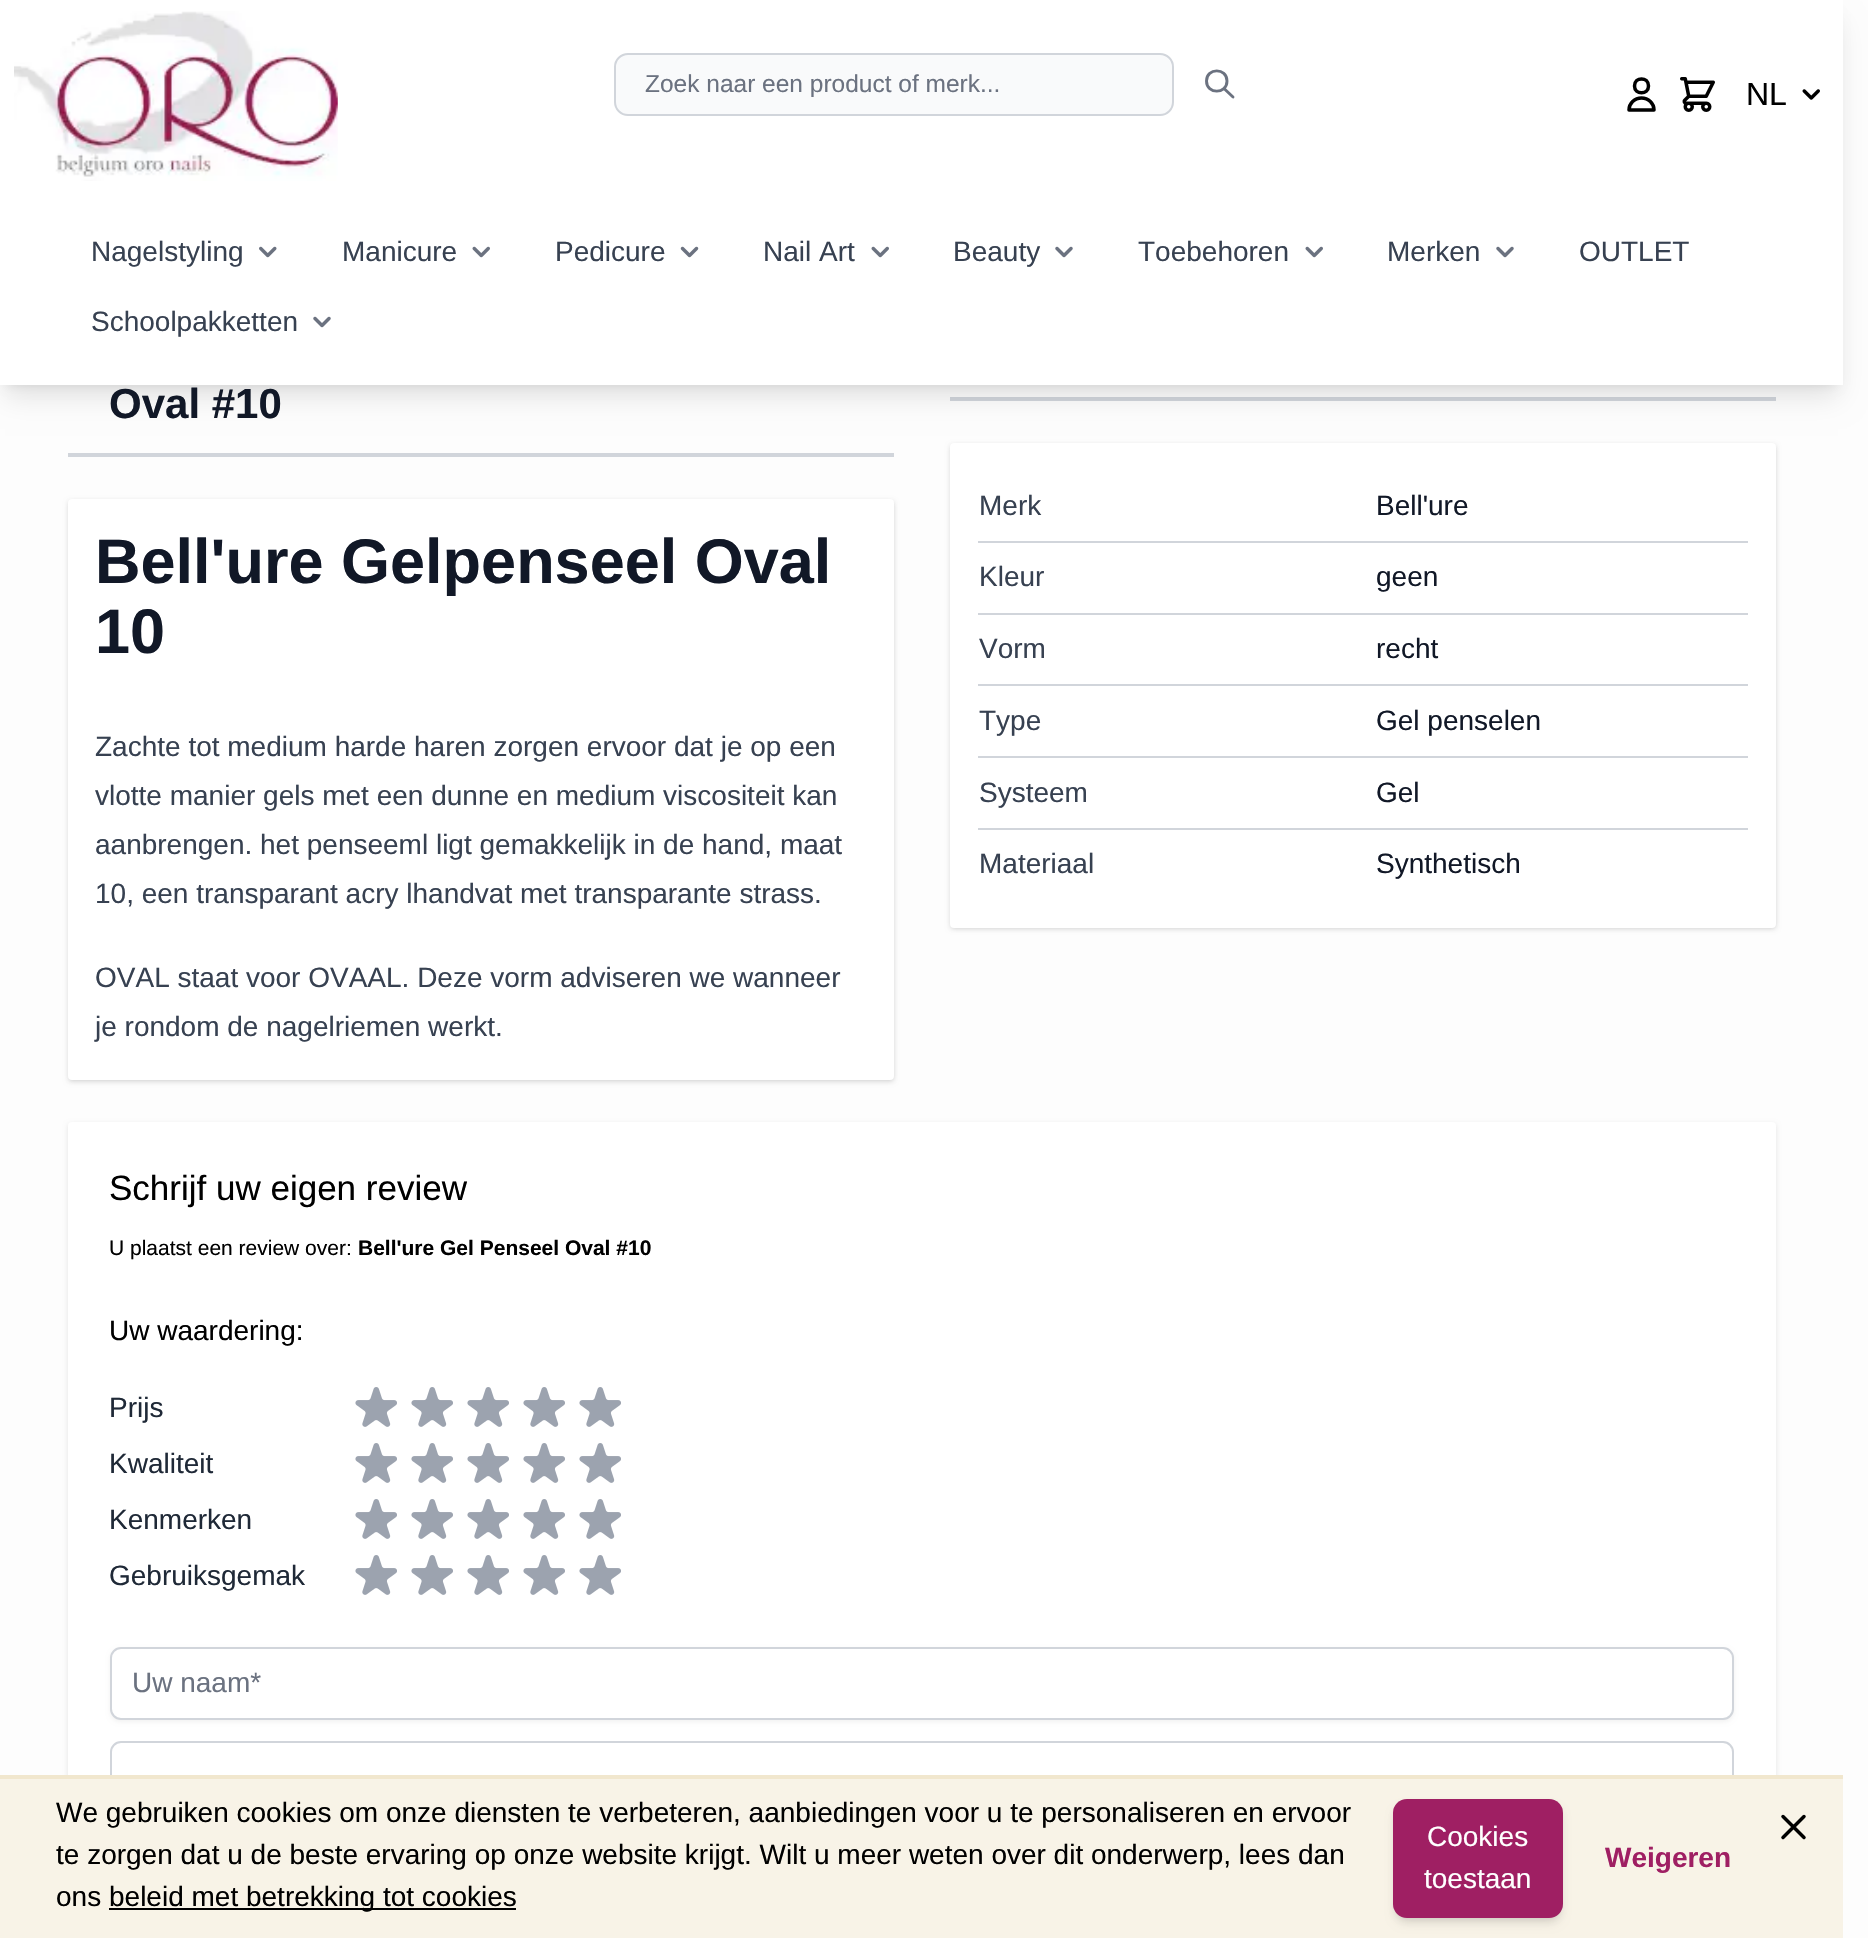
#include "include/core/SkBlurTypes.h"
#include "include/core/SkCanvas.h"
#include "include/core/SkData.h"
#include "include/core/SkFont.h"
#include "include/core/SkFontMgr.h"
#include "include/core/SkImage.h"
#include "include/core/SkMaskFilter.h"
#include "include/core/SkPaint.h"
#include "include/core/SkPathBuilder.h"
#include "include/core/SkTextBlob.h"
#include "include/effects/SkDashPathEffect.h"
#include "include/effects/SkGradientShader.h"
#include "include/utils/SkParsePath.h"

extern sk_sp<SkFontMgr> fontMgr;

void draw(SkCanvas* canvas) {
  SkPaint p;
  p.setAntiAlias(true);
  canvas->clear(SkColorSetRGB(253, 253, 253));
  p.setColor(SkColorSetRGB(209, 213, 219));
  canvas->drawRect(SkRect::MakeLTRB(950, 397, 1776, 401), p);
  p.setColor(SkColorSetARGB(26, 0, 0, 0));
  p.setMaskFilter(SkMaskFilter::MakeBlur(kNormal_SkBlurStyle, 5));
  canvas->drawRect(SkRect::MakeLTRB(7, 14, 1836, 385), p);
  p.setMaskFilter(nullptr);
  p.setMaskFilter(SkMaskFilter::MakeBlur(kNormal_SkBlurStyle, 13));
  canvas->drawRect(SkRect::MakeLTRB(5, 23, 1838, 397), p);
  p.setMaskFilter(nullptr);
  p.setColor(SK_ColorWHITE);
  canvas->drawRect(SkRect::MakeLTRB(0, 0, 1843, 385), p);
  canvas->drawImageRect(SkImages::DeferredFromEncodedData(SkData::MakeFromFileName("images/1.png")), SkRect::MakeLTRB(14, 11, 338, 181), SkSamplingOptions());
  p.setColor(SkColorSetRGB(249, 250, 251));
  canvas->drawRoundRect(SkRect::MakeLTRB(615, 54, 1173, 115), 13, 13, p);
  p.setStyle(SkPaint::kStroke_Style);
  p.setStrokeWidth(2);
  p.setColor(SkColorSetRGB(209, 213, 219));
  canvas->drawRoundRect(SkRect::MakeLTRB(615, 54, 1173, 115), 13, 13, p);
  p.setStrokeWidth(2.9f);
  p.setStrokeCap(SkPaint::kRound_Cap);
  p.setStrokeJoin(SkPaint::kRound_Join);
  p.setColor(SkColorSetRGB(107, 114, 128));
  canvas->drawPath(SkPathBuilder().moveTo(1233, 97).lineTo(1224, 88.5f).moveTo(1227, 81).cubicTo(1227, 94.5f, 1206.5f, 94.5f, 1206.5f, 81).cubicTo(1206.5f, 67.5f, 1227, 67.5f, 1227, 81).close().detach(), p);
  p.setStrokeWidth(3.5f);
  p.setColor(SK_ColorBLACK);
  canvas->drawPath(SkPathBuilder().moveTo(1648.5f, 86).cubicTo(1648.5f, 95, 1634.5f, 95, 1634.5f, 86).cubicTo(1634.5f, 76.5f, 1648.5f, 76.5f, 1648.5f, 86).close().moveTo(1641.5f, 98).cubicTo(1634.5f, 98, 1629, 103.5f, 1629, 110).lineTo(1654, 110).cubicTo(1654, 103.5f, 1648.5f, 98, 1641.5f, 98).close().detach(), p);
  canvas->drawImageRect(SkImages::DeferredFromEncodedData(SkData::MakeFromFileName("images/2.png")), SkRect::MakeLTRB(1680, 77, 1715, 112), SkSamplingOptions());
  canvas->drawImageRect(SkImages::DeferredFromEncodedData(SkData::MakeFromFileName("images/3.png")), SkRect::MakeLTRB(1802, 89, 1820, 100), SkSamplingOptions());
  canvas->drawImageRect(SkImages::DeferredFromEncodedData(SkData::MakeFromFileName("images/4.png")), SkRect::MakeLTRB(259, 246, 277, 258), SkSamplingOptions());
  canvas->drawImageRect(SkImages::DeferredFromEncodedData(SkData::MakeFromFileName("images/5.png")), SkRect::MakeLTRB(472, 246, 490, 258), SkSamplingOptions());
  canvas->drawImageRect(SkImages::DeferredFromEncodedData(SkData::MakeFromFileName("images/6.png")), SkRect::MakeLTRB(680, 246, 699, 258), SkSamplingOptions());
  canvas->drawImageRect(SkImages::DeferredFromEncodedData(SkData::MakeFromFileName("images/5.png")), SkRect::MakeLTRB(871, 246, 889, 258), SkSamplingOptions());
  canvas->drawImageRect(SkImages::DeferredFromEncodedData(SkData::MakeFromFileName("images/7.png")), SkRect::MakeLTRB(1055, 246, 1073, 258), SkSamplingOptions());
  canvas->drawImageRect(SkImages::DeferredFromEncodedData(SkData::MakeFromFileName("images/5.png")), SkRect::MakeLTRB(1305, 246, 1323, 258), SkSamplingOptions());
  canvas->drawImageRect(SkImages::DeferredFromEncodedData(SkData::MakeFromFileName("images/7.png")), SkRect::MakeLTRB(1496, 246, 1514, 258), SkSamplingOptions());
  canvas->drawImageRect(SkImages::DeferredFromEncodedData(SkData::MakeFromFileName("images/7.png")), SkRect::MakeLTRB(313, 316, 331, 328), SkSamplingOptions());
  p.setStyle(SkPaint::kFill_Style);
  p.setColor(SkColorSetRGB(209, 213, 219));
  canvas->drawRect(SkRect::MakeLTRB(68, 453, 894, 457), p);
  p.setColor(SkColorSetARGB(26, 0, 0, 0));
  p.setMaskFilter(SkMaskFilter::MakeBlur(kNormal_SkBlurStyle, 2));
  canvas->drawRoundRect(SkRect::MakeLTRB(70, 502, 893, 1080), 2, 2, p);
  p.setMaskFilter(nullptr);
  p.setMaskFilter(SkMaskFilter::MakeBlur(kNormal_SkBlurStyle, 2.5f));
  canvas->drawRoundRect(SkRect::MakeLTRB(68, 501, 894, 1082), 4, 4, p);
  p.setMaskFilter(nullptr);
  p.setColor(SK_ColorWHITE);
  canvas->drawRoundRect(SkRect::MakeLTRB(68, 499, 894, 1080), 4, 4, p);
  p.setColor(SkColorSetARGB(26, 0, 0, 0));
  p.setMaskFilter(SkMaskFilter::MakeBlur(kNormal_SkBlurStyle, 2));
  canvas->drawRoundRect(SkRect::MakeLTRB(952, 446, 1775, 928), 2, 2, p);
  p.setMaskFilter(nullptr);
  p.setMaskFilter(SkMaskFilter::MakeBlur(kNormal_SkBlurStyle, 2.5f));
  canvas->drawRoundRect(SkRect::MakeLTRB(950, 445, 1776, 929), 4, 4, p);
  p.setMaskFilter(nullptr);
  p.setColor(SK_ColorWHITE);
  canvas->drawRoundRect(SkRect::MakeLTRB(950, 443, 1776, 928), 4, 4, p);
  p.setColor(SkColorSetRGB(209, 213, 219));
  canvas->drawRect(SkRect::MakeLTRB(978, 541, 1748, 543), p);
  canvas->drawRect(SkRect::MakeLTRB(978, 613, 1748, 615), p);
  canvas->drawRect(SkRect::MakeLTRB(978, 684, 1748, 686), p);
  canvas->drawRect(SkRect::MakeLTRB(978, 756, 1748, 758), p);
  canvas->drawRect(SkRect::MakeLTRB(978, 828, 1748, 830), p);
  p.setColor(SkColorSetARGB(26, 0, 0, 0));
  p.setMaskFilter(SkMaskFilter::MakeBlur(kNormal_SkBlurStyle, 2.5f));
  canvas->drawRoundRect(SkRect::MakeLTRB(68, 1124, 1776, 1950), 4, 4, p);
  p.setMaskFilter(nullptr);
  p.setColor(SK_ColorWHITE);
  canvas->drawRoundRect(SkRect::MakeLTRB(68, 1122, 1776, 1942), 4, 4, p);
  canvas->drawImageRect(SkImages::DeferredFromEncodedData(SkData::MakeFromFileName("images/8.png")), SkRect::MakeLTRB(355, 1387, 397, 1427), SkSamplingOptions());
  canvas->drawImageRect(SkImages::DeferredFromEncodedData(SkData::MakeFromFileName("images/8.png")), SkRect::MakeLTRB(411, 1387, 453, 1427), SkSamplingOptions());
  canvas->drawImageRect(SkImages::DeferredFromEncodedData(SkData::MakeFromFileName("images/8.png")), SkRect::MakeLTRB(467, 1387, 509, 1427), SkSamplingOptions());
  canvas->drawImageRect(SkImages::DeferredFromEncodedData(SkData::MakeFromFileName("images/8.png")), SkRect::MakeLTRB(523, 1387, 565, 1427), SkSamplingOptions());
  canvas->drawImageRect(SkImages::DeferredFromEncodedData(SkData::MakeFromFileName("images/8.png")), SkRect::MakeLTRB(579, 1387, 621, 1427), SkSamplingOptions());
  canvas->drawImageRect(SkImages::DeferredFromEncodedData(SkData::MakeFromFileName("images/8.png")), SkRect::MakeLTRB(355, 1443, 397, 1483), SkSamplingOptions());
  canvas->drawImageRect(SkImages::DeferredFromEncodedData(SkData::MakeFromFileName("images/8.png")), SkRect::MakeLTRB(411, 1443, 453, 1483), SkSamplingOptions());
  canvas->drawImageRect(SkImages::DeferredFromEncodedData(SkData::MakeFromFileName("images/8.png")), SkRect::MakeLTRB(467, 1443, 509, 1483), SkSamplingOptions());
  canvas->drawImageRect(SkImages::DeferredFromEncodedData(SkData::MakeFromFileName("images/8.png")), SkRect::MakeLTRB(523, 1443, 565, 1483), SkSamplingOptions());
  canvas->drawImageRect(SkImages::DeferredFromEncodedData(SkData::MakeFromFileName("images/8.png")), SkRect::MakeLTRB(579, 1443, 621, 1483), SkSamplingOptions());
  canvas->drawImageRect(SkImages::DeferredFromEncodedData(SkData::MakeFromFileName("images/8.png")), SkRect::MakeLTRB(355, 1499, 397, 1539), SkSamplingOptions());
  canvas->drawImageRect(SkImages::DeferredFromEncodedData(SkData::MakeFromFileName("images/8.png")), SkRect::MakeLTRB(411, 1499, 453, 1539), SkSamplingOptions());
  canvas->drawImageRect(SkImages::DeferredFromEncodedData(SkData::MakeFromFileName("images/8.png")), SkRect::MakeLTRB(467, 1499, 509, 1539), SkSamplingOptions());
  canvas->drawImageRect(SkImages::DeferredFromEncodedData(SkData::MakeFromFileName("images/8.png")), SkRect::MakeLTRB(523, 1499, 565, 1539), SkSamplingOptions());
  canvas->drawImageRect(SkImages::DeferredFromEncodedData(SkData::MakeFromFileName("images/8.png")), SkRect::MakeLTRB(579, 1499, 621, 1539), SkSamplingOptions());
  canvas->drawImageRect(SkImages::DeferredFromEncodedData(SkData::MakeFromFileName("images/8.png")), SkRect::MakeLTRB(355, 1555, 397, 1595), SkSamplingOptions());
  canvas->drawImageRect(SkImages::DeferredFromEncodedData(SkData::MakeFromFileName("images/8.png")), SkRect::MakeLTRB(411, 1555, 453, 1595), SkSamplingOptions());
  canvas->drawImageRect(SkImages::DeferredFromEncodedData(SkData::MakeFromFileName("images/8.png")), SkRect::MakeLTRB(467, 1555, 509, 1595), SkSamplingOptions());
  canvas->drawImageRect(SkImages::DeferredFromEncodedData(SkData::MakeFromFileName("images/8.png")), SkRect::MakeLTRB(523, 1555, 565, 1595), SkSamplingOptions());
  canvas->drawImageRect(SkImages::DeferredFromEncodedData(SkData::MakeFromFileName("images/8.png")), SkRect::MakeLTRB(579, 1555, 621, 1595), SkSamplingOptions());
  p.setColor(SkColorSetARGB(13, 0, 0, 0));
  p.setMaskFilter(SkMaskFilter::MakeBlur(kNormal_SkBlurStyle, 2));
  canvas->drawRoundRect(SkRect::MakeLTRB(110, 1649, 1734, 1722), 11, 11, p);
  p.setMaskFilter(nullptr);
  p.setColor(SK_ColorWHITE);
  canvas->drawRoundRect(SkRect::MakeLTRB(111, 1648, 1733, 1719), 10, 10, p);
  p.setStyle(SkPaint::kStroke_Style);
  p.setStrokeWidth(2);
  p.setStrokeCap(SkPaint::kButt_Cap);
  p.setStrokeJoin(SkPaint::kMiter_Join);
  p.setColor(SkColorSetRGB(209, 213, 219));
  canvas->drawRoundRect(SkRect::MakeLTRB(111, 1648, 1733, 1719), 10, 10, p);
  canvas->drawRoundRect(SkRect::MakeLTRB(111, 1742, 1733, 1814), 10, 10, p);
  p.setStyle(SkPaint::kFill_Style);
  p.setColor(SkColorSetRGB(248, 243, 231));
  canvas->drawRect(SkRect::MakeLTRB(0, 1779, 1843, 1938), p);
  p.setColor(SkColorSetRGB(241, 231, 206));
  canvas->drawRect(SkRect::MakeLTRB(0, 1775, 1843, 1779), p);
  p.setColor(SK_ColorBLACK);
  canvas->drawRect(SkRect::MakeLTRB(109, 1908, 516, 1910), p);
  p.setColor(SkColorSetARGB(26, 0, 0, 0));
  p.setMaskFilter(SkMaskFilter::MakeBlur(kNormal_SkBlurStyle, 3.5f));
  canvas->drawRoundRect(SkRect::MakeLTRB(1397, 1806, 1559, 1918), 11, 11, p);
  p.setMaskFilter(nullptr);
  p.setMaskFilter(SkMaskFilter::MakeBlur(kNormal_SkBlurStyle, 5));
  canvas->drawRoundRect(SkRect::MakeLTRB(1395, 1808, 1561, 1923), 12, 12, p);
  p.setMaskFilter(nullptr);
  p.setColor(SkColorSetRGB(159, 31, 99));
  canvas->drawRoundRect(SkRect::MakeLTRB(1393, 1799, 1563, 1918), 14, 14, p);
  p.setStyle(SkPaint::kStroke_Style);
  p.setStrokeWidth(3.5f);
  p.setStrokeCap(SkPaint::kRound_Cap);
  p.setStrokeJoin(SkPaint::kRound_Join);
  p.setColor(SK_ColorBLACK);
  canvas->drawPath(SkPathBuilder().moveTo(1783, 1837.5f).lineTo(1804, 1816.5f).moveTo(1783, 1816.5f).lineTo(1804, 1837.5f).detach(), p);
  SkFont font1(fontMgr->matchFamilyStyle("Liberation Sans", SkFontStyle::Normal()), 24.5f);
  font1.setSubpixel(true);
  p.setStyle(SkPaint::kFill_Style);
  p.setColor(SkColorSetRGB(107, 114, 128));
  canvas->drawString("Zoek naar een product of merk...", 645, 92, font1, p);
  SkFont font2(fontMgr->matchFamilyStyle("Liberation Sans", SkFontStyle::Normal()), 32);
  font2.setSubpixel(true);
  p.setColor(SK_ColorBLACK);
  canvas->drawString("NL", 1746, 105, font2, p);
  SkFont font3(fontMgr->matchFamilyStyle("Liberation Sans", SkFontStyle::Normal()), 28);
  font3.setSubpixel(true);
  p.setColor(SkColorSetRGB(55, 65, 81));
  canvas->drawString("Nagelstyling", 91, 261, font3, p);
  canvas->drawString("Manicure", 342, 261, font3, p);
  canvas->drawString("Pedicure", 555, 261, font3, p);
  canvas->drawString("Nail Art", 763, 261, font3, p);
  canvas->drawString("Beauty", 953, 261, font3, p);
  canvas->drawString("Toebehoren", 1138, 261, font3, p);
  canvas->drawString("Merken", 1387, 261, font3, p);
  canvas->drawString("OUTLET", 1579, 261, font3, p);
  canvas->drawString("Schoolpakketten", 91, 331, font3, p);
  SkFont font4(fontMgr->matchFamilyStyle("Liberation Sans", SkFontStyle::Bold()), 42);
  font4.setSubpixel(true);
  p.setColor(SkColorSetRGB(17, 24, 39));
  canvas->drawString("Oval #10", 109, 418, font4, p);
  SkFont font5(fontMgr->matchFamilyStyle("Liberation Sans", SkFontStyle::Bold()), 63);
  font5.setSubpixel(true);
  canvas->drawString("Bell'ure Gelpenseel Oval", 95, 583, font5, p);
  canvas->drawString("10", 95, 653, font5, p);
  p.setColor(SkColorSetRGB(55, 65, 81));
  canvas->drawString("Zachte tot medium harde haren zorgen ervoor dat je op een", 95, 756, font3, p);
  canvas->drawString("vlotte manier gels met een dunne en medium viscositeit kan", 95, 805, font3, p);
  canvas->drawString("aanbrengen. het penseeml ligt gemakkelijk in de hand, maat", 95, 854, font3, p);
  canvas->drawString("10, een transparant acry lhandvat met transparante strass.", 95, 903, font3, p);
  canvas->drawString("OVAL staat voor OVAAL. Deze vorm adviseren we wanneer", 95, 987, font3, p);
  canvas->drawString("je rondom de nagelriemen werkt.", 95, 1036, font3, p);
  canvas->drawString("Merk", 979, 515, font3, p);
  p.setColor(SkColorSetRGB(17, 24, 39));
  canvas->drawString("Bell'ure", 1376, 515, font3, p);
  p.setColor(SkColorSetRGB(55, 65, 81));
  canvas->drawString("Kleur", 979, 586, font3, p);
  p.setColor(SkColorSetRGB(17, 24, 39));
  canvas->drawString("geen", 1376, 586, font3, p);
  p.setColor(SkColorSetRGB(55, 65, 81));
  canvas->drawString("Vorm", 979, 658, font3, p);
  p.setColor(SkColorSetRGB(17, 24, 39));
  canvas->drawString("recht", 1376, 658, font3, p);
  p.setColor(SkColorSetRGB(55, 65, 81));
  canvas->drawString("Type", 979, 730, font3, p);
  p.setColor(SkColorSetRGB(17, 24, 39));
  canvas->drawString("Gel penselen", 1376, 730, font3, p);
  p.setColor(SkColorSetRGB(55, 65, 81));
  canvas->drawString("Systeem", 979, 802, font3, p);
  p.setColor(SkColorSetRGB(17, 24, 39));
  canvas->drawString("Gel", 1376, 802, font3, p);
  p.setColor(SkColorSetRGB(55, 65, 81));
  canvas->drawString("Materiaal", 979, 873, font3, p);
  p.setColor(SkColorSetRGB(17, 24, 39));
  canvas->drawString("Synthetisch", 1376, 873, font3, p);
  SkFont font6(fontMgr->matchFamilyStyle("Liberation Sans", SkFontStyle::Normal()), 35);
  font6.setSubpixel(true);
  p.setColor(SK_ColorBLACK);
  canvas->drawString("Schrijf uw eigen review", 109, 1200, font6, p);
  SkFont font7(fontMgr->matchFamilyStyle("Liberation Sans", SkFontStyle::Normal()), 21);
  font7.setSubpixel(true);
  canvas->drawString("U plaatst een review over:", 109, 1255, font7, p);
  SkFont font8(fontMgr->matchFamilyStyle("Liberation Sans", SkFontStyle::Bold()), 21);
  font8.setSubpixel(true);
  canvas->drawString("Bell'ure Gel Penseel Oval #10", 358, 1255, font8, p);
  canvas->drawString("Uw waardering:", 109, 1340, font3, p);
  p.setColor(SkColorSetRGB(31, 41, 55));
  canvas->drawString("Prijs", 109, 1417, font3, p);
  canvas->drawString("Kwaliteit", 109, 1473, font3, p);
  canvas->drawString("Kenmerken", 109, 1529, font3, p);
  canvas->drawString("Gebruiksgemak", 109, 1585, font3, p);
  p.setColor(SkColorSetRGB(107, 114, 128));
  canvas->drawString("Uw naam*", 132, 1692, font3, p);
  p.setColor(SK_ColorBLACK);
  canvas->drawString("We gebruiken cookies om onze diensten te verbeteren, aanbiedingen voor u te personaliseren en ervoor", 56, 1822, font3, p);
  canvas->drawString("te zorgen dat u de beste ervaring op onze website krijgt. Wilt u meer weten over dit onderwerp, lees dan", 56, 1864, font3, p);
  canvas->drawString("ons", 56, 1906, font3, p);
  canvas->drawString("beleid met betrekking tot cookies", 109, 1906, font3, p);
  p.setColor(SK_ColorWHITE);
  canvas->drawString("Cookies", 1427, 1846, font3, p);
  canvas->drawString("toestaan", 1424, 1888, font3, p);
  SkFont font9(fontMgr->matchFamilyStyle("Liberation Sans", SkFontStyle::Bold()), 28);
  font9.setSubpixel(true);
  p.setColor(SkColorSetRGB(159, 31, 99));
  canvas->drawString("Weigeren", 1605, 1867, font9, p);
}
